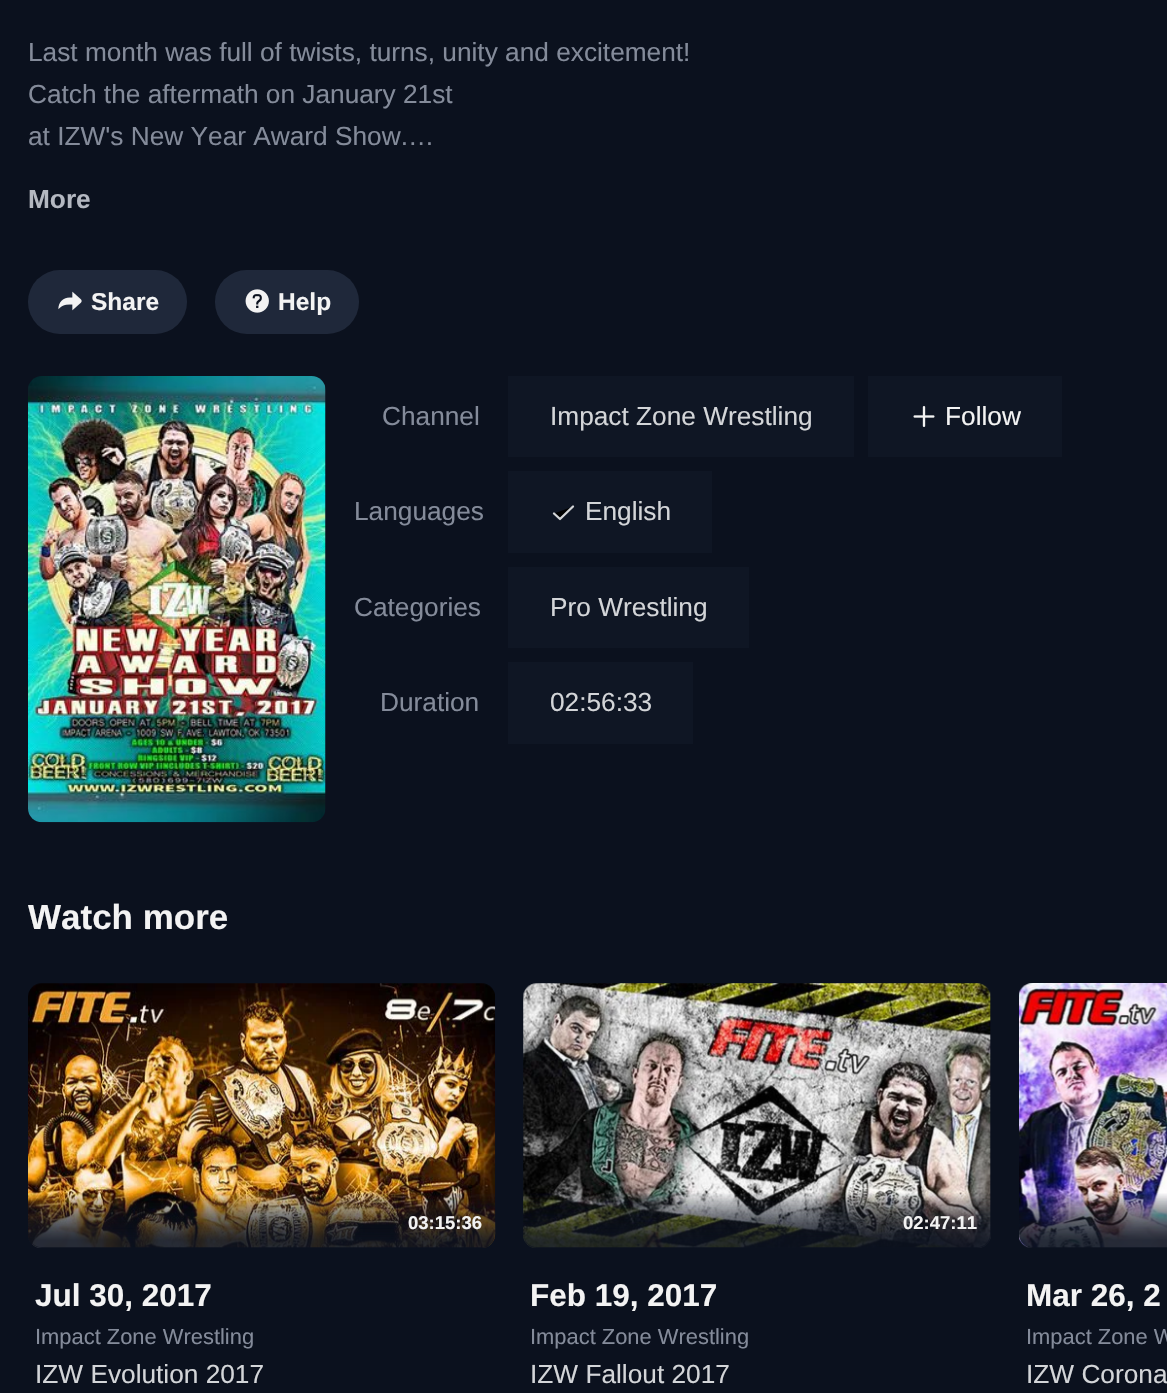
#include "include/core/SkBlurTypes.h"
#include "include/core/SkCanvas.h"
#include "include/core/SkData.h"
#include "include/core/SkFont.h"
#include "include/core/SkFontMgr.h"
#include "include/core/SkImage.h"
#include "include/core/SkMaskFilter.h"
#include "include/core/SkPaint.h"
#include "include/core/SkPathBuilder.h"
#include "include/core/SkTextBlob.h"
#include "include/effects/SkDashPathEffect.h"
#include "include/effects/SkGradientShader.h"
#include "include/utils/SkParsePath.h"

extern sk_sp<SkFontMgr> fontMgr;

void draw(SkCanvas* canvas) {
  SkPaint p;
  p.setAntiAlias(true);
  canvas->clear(SkColorSetRGB(11, 17, 30));
  p.setColor(SkColorSetRGB(31, 40, 58));
  canvas->drawRoundRect(SkRect::MakeLTRB(28, 270, 187, 334), 32, 32, p);
  canvas->drawImageRect(SkImages::DeferredFromEncodedData(SkData::MakeFromFileName("images/1.png")), SkRect::MakeLTRB(58, 291, 82, 311), SkSamplingOptions());
  canvas->drawRoundRect(SkRect::MakeLTRB(215, 270, 359, 334), 32, 32, p);
  canvas->drawImageRect(SkImages::DeferredFromEncodedData(SkData::MakeFromFileName("images/2.png")), SkRect::MakeLTRB(245, 289, 269, 313), SkSamplingOptions());
  canvas->drawImageRect(SkImages::DeferredFromEncodedData(SkData::MakeFromFileName("images/3.png")), SkRect::MakeLTRB(28, 376, 326, 823), SkSamplingOptions());
  p.setColor(SkColorSetRGB(15, 22, 36));
  canvas->drawRect(SkRect::MakeLTRB(508, 376, 854, 457), p);
  canvas->drawRect(SkRect::MakeLTRB(868, 376, 1062, 457), p);
  canvas->drawImageRect(SkImages::DeferredFromEncodedData(SkData::MakeFromFileName("images/4.png")), SkRect::MakeLTRB(913, 406, 935, 427), SkSamplingOptions());
  canvas->drawRect(SkRect::MakeLTRB(508, 471, 712, 553), p);
  p.setColor(SK_ColorBLACK);
  canvas->drawPath(SkPathBuilder().moveTo(573, 506.5f).lineTo(560, 519).lineTo(554, 513.5f).detach(), p);
  p.setStyle(SkPaint::kStroke_Style);
  p.setStrokeWidth(2.3f);
  p.setStrokeCap(SkPaint::kRound_Cap);
  p.setStrokeJoin(SkPaint::kRound_Join);
  p.setColor(SkColorSetRGB(211, 213, 216));
  canvas->drawPath(SkPathBuilder().moveTo(573, 506.5f).lineTo(560, 519).lineTo(554, 513.5f).detach(), p);
  p.setStyle(SkPaint::kFill_Style);
  p.setColor(SkColorSetRGB(15, 22, 36));
  canvas->drawRect(SkRect::MakeLTRB(508, 567, 749, 648), p);
  canvas->drawRect(SkRect::MakeLTRB(508, 662, 693, 744), p);
  canvas->drawImageRect(SkImages::DeferredFromEncodedData(SkData::MakeFromFileName("images/5.png")), SkRect::MakeLTRB(28, 983, 496, 1248), SkSamplingOptions());
  {
    const SkColor colors[] = {SkColorSetARGB(168, 11, 17, 30), SkColorSetARGB(0, 11, 17, 30)};
    const float stops[] = {0.03f, 0.21f};
    const SkPoint ends[] = {{262, 1248}, {262, 984}};
    p.setShader(SkGradientShader::MakeLinear(ends, colors, stops, 2, SkTileMode::kClamp));
    p.setAlpha(255);
  }
  canvas->drawRoundRect(SkRect::MakeLTRB(28, 984, 495, 1248), 14, 14, p);
  canvas->drawRoundRect(SkRect::MakeLTRB(28, 984, 495, 1248), 14, 14, p);
  canvas->drawImageRect(SkImages::DeferredFromEncodedData(SkData::MakeFromFileName("images/6.png")), SkRect::MakeLTRB(523, 983, 991, 1248), SkSamplingOptions());
  {
    const SkColor colors[] = {SkColorSetARGB(168, 11, 17, 30), SkColorSetARGB(0, 11, 17, 30)};
    const float stops[] = {0.03f, 0.21f};
    const SkPoint ends[] = {{757, 1248}, {757, 984}};
    p.setShader(SkGradientShader::MakeLinear(ends, colors, stops, 2, SkTileMode::kClamp));
    p.setAlpha(255);
  }
  canvas->drawRoundRect(SkRect::MakeLTRB(523, 984, 991, 1248), 14, 14, p);
  canvas->drawRoundRect(SkRect::MakeLTRB(523, 984, 991, 1248), 14, 14, p);
  canvas->drawImageRect(SkImages::DeferredFromEncodedData(SkData::MakeFromFileName("images/7.png")), SkRect::MakeLTRB(1019, 983, 1167, 1248), SkSamplingOptions());
  {
    const SkColor colors[] = {SkColorSetARGB(168, 11, 17, 30), SkColorSetARGB(0, 11, 17, 30)};
    const float stops[] = {0.03f, 0.21f};
    const SkPoint ends[] = {{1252, 1248}, {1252, 984}};
    p.setShader(SkGradientShader::MakeLinear(ends, colors, stops, 2, SkTileMode::kClamp));
    p.setAlpha(255);
  }
  canvas->drawPath(SkPathBuilder().moveTo(1033, 984).lineTo(1167, 984).lineTo(1167, 1248).lineTo(1033, 1248).cubicTo(1025.5f, 1248, 1019, 1241.5f, 1019, 1234).lineTo(1019, 998).cubicTo(1019, 990.5f, 1025.5f, 984, 1033, 984).close().detach(), p);
  canvas->drawPath(SkPathBuilder().moveTo(1033, 984).lineTo(1167, 984).lineTo(1167, 1248).lineTo(1033, 1248).cubicTo(1025.5f, 1248, 1019, 1241.5f, 1019, 1234).lineTo(1019, 998).cubicTo(1019, 990.5f, 1025.5f, 984, 1033, 984).close().detach(), p);
  SkFont font1(fontMgr->matchFamilyStyle("Liberation Sans", SkFontStyle::Normal()), 26.25f);
  font1.setSubpixel(true);
  p.setShader(nullptr);
  p.setColor(SkColorSetRGB(132, 139, 154));
  canvas->drawString("Last month was full of twists, turns, unity and excitement!", 28, 61, font1, p);
  canvas->drawString("Catch the aftermath on January 21st", 28, 103, font1, p);
  canvas->drawString("at IZW's New Year Award Show.…", 28, 145, font1, p);
  SkFont font2(fontMgr->matchFamilyStyle("Liberation Sans", SkFontStyle::Bold()), 26.25f);
  font2.setSubpixel(true);
  p.setColor(SkColorSetRGB(180, 184, 193));
  canvas->drawString("More", 28, 208, font2, p);
  SkFont font3(fontMgr->matchFamilyStyle("Liberation Sans", SkFontStyle::Bold()), 24.5f);
  font3.setSubpixel(true);
  p.setColor(SkColorSetRGB(243, 243, 243));
  canvas->drawString("Share", 91, 310, font3, p);
  canvas->drawString("Help", 278, 310, font3, p);
  p.setColor(SkColorSetRGB(132, 139, 154));
  canvas->drawString("Channel", 382, 425, font1, p);
  p.setColor(SkColorSetRGB(211, 213, 216));
  canvas->drawString("Impact Zone Wrestling", 550, 425, font1, p);
  p.setColor(SkColorSetRGB(243, 243, 243));
  canvas->drawString("Follow", 945, 425, font1, p);
  p.setColor(SkColorSetRGB(132, 139, 154));
  canvas->drawString("Languages", 354, 520, font1, p);
  p.setColor(SkColorSetRGB(211, 213, 216));
  canvas->drawString("English", 585, 520, font1, p);
  p.setColor(SkColorSetRGB(132, 139, 154));
  canvas->drawString("Categories", 354, 616, font1, p);
  p.setColor(SkColorSetRGB(211, 213, 216));
  canvas->drawString("Pro Wrestling", 550, 616, font1, p);
  p.setColor(SkColorSetRGB(132, 139, 154));
  canvas->drawString("Duration", 380, 711, font1, p);
  p.setColor(SkColorSetRGB(211, 213, 216));
  canvas->drawString("02:56:33", 550, 711, font1, p);
  SkFont font4(fontMgr->matchFamilyStyle("Liberation Sans", SkFontStyle::Bold()), 35);
  font4.setSubpixel(true);
  p.setColor(SkColorSetRGB(243, 243, 243));
  canvas->drawString("Watch more", 28, 929, font4, p);
  SkFont font5(fontMgr->matchFamilyStyle("Liberation Sans", SkFontStyle::Bold()), 18.5f);
  font5.setSubpixel(true);
  canvas->drawString("03:15:36", 408, 1229, font5, p);
  SkFont font6(fontMgr->matchFamilyStyle("Liberation Sans", SkFontStyle::Bold()), 31.5f);
  font6.setSubpixel(true);
  canvas->drawString("Jul 30, 2017", 35, 1306, font6, p);
  SkFont font7(fontMgr->matchFamilyStyle("Liberation Sans", SkFontStyle::Normal()), 21.9f);
  font7.setSubpixel(true);
  p.setColor(SkColorSetRGB(132, 139, 154));
  canvas->drawString("Impact Zone Wrestling", 35, 1344, font7, p);
  p.setColor(SkColorSetRGB(211, 213, 216));
  canvas->drawString("IZW Evolution 2017", 35, 1383, font1, p);
  p.setColor(SkColorSetRGB(243, 243, 243));
  canvas->drawString("02:47:11", 903, 1229, font5, p);
  canvas->drawString("Feb 19, 2017", 530, 1306, font6, p);
  p.setColor(SkColorSetRGB(132, 139, 154));
  canvas->drawString("Impact Zone Wrestling", 530, 1344, font7, p);
  p.setColor(SkColorSetRGB(211, 213, 216));
  canvas->drawString("IZW Fallout 2017", 530, 1383, font1, p);
  p.setColor(SkColorSetRGB(243, 243, 243));
  canvas->drawString("Mar 26, 2", 1026, 1306, font6, p);
  p.setColor(SkColorSetRGB(132, 139, 154));
  canvas->drawString("Impact Zone W", 1026, 1344, font7, p);
  p.setColor(SkColorSetRGB(211, 213, 216));
  canvas->drawString("IZW Corona", 1026, 1383, font1, p);
}
